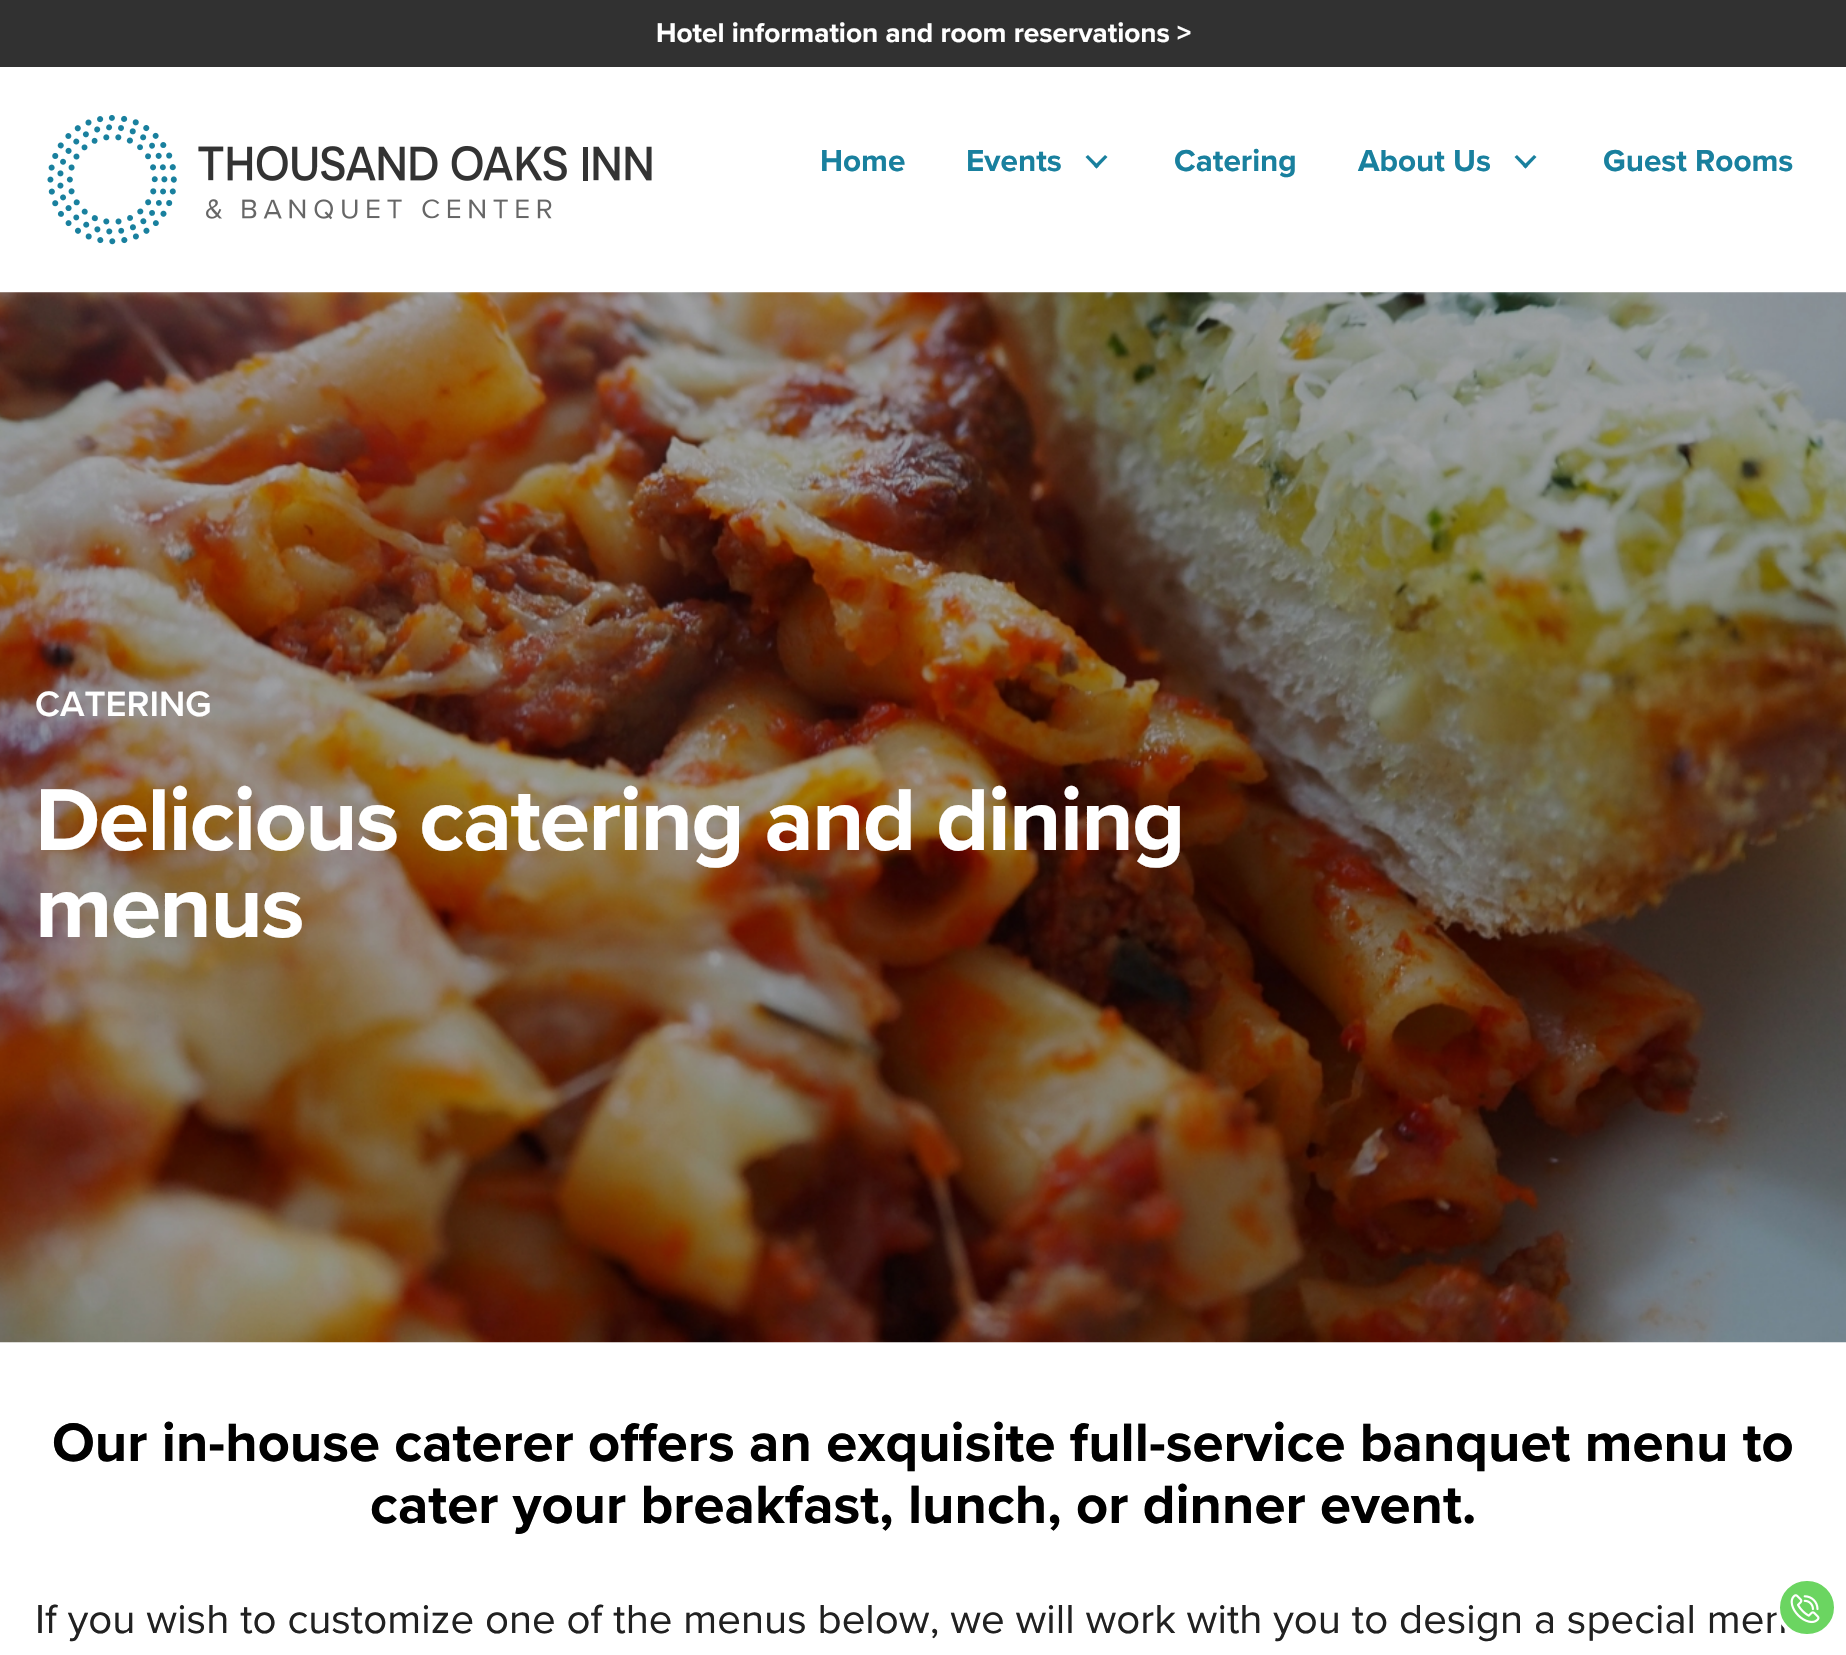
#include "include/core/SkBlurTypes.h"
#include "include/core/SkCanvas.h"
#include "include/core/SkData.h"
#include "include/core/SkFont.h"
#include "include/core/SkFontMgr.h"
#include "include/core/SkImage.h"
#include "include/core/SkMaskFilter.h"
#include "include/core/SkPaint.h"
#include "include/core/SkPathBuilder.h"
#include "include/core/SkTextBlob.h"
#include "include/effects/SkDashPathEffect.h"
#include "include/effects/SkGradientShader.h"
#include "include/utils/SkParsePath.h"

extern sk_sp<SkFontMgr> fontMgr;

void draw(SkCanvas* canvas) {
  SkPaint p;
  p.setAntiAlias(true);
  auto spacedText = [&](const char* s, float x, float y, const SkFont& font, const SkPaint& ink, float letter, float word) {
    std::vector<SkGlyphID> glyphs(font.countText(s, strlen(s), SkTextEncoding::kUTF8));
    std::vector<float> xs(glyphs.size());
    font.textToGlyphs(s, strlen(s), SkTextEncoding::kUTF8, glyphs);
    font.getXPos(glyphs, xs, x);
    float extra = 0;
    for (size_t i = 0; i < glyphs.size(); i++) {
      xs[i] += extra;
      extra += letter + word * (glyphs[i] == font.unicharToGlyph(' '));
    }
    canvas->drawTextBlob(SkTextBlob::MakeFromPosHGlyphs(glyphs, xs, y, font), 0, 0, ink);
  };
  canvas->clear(SK_ColorWHITE);
  p.setColor(SkColorSetRGB(49, 49, 49));
  canvas->drawRect(SkRect::MakeLTRB(0, 0, 1846, 67), p);
  canvas->drawImageRect(SkImages::DeferredFromEncodedData(SkData::MakeFromFileName("images/1.png")), SkRect::MakeLTRB(47, 115, 652, 245), SkSamplingOptions());
  p.setColor(SkColorSetRGB(25, 128, 158));
  canvas->drawPath(SkPathBuilder().moveTo(1105, 155).lineTo(1107.5f, 157).lineTo(1096.5f, 168.5f).lineTo(1094, 166).close().detach(), p);
  canvas->drawPath(SkPathBuilder().moveTo(1088, 155).lineTo(1099, 166).lineTo(1096.5f, 168.5f).lineTo(1085.5f, 157).close().detach(), p);
  canvas->drawPath(SkPathBuilder().moveTo(1534, 155).lineTo(1536.5f, 157).lineTo(1525.5f, 168.5f).lineTo(1523, 166).close().detach(), p);
  canvas->drawPath(SkPathBuilder().moveTo(1517, 155).lineTo(1528, 166).lineTo(1525.5f, 168.5f).lineTo(1514.5f, 157).close().detach(), p);
  canvas->drawImageRect(SkImages::DeferredFromEncodedData(SkData::MakeFromFileName("images/2.png")), SkRect::MakeLTRB(0, 292, 1846, 1343), SkSamplingOptions());
  SkFont font1(fontMgr->matchFamilyStyle("Proxima Nova", SkFontStyle::Bold()), 28);
  font1.setSubpixel(true);
  p.setColor(SK_ColorWHITE);
  canvas->drawString("Hotel information and room reservations >", 656, 42, font1, p);
  SkFont font2(fontMgr->matchFamilyStyle("Proxima Nova", SkFontStyle::Bold()), 31.5f);
  font2.setSubpixel(true);
  p.setColor(SkColorSetRGB(25, 128, 158));
  canvas->drawString("Home", 820, 171, font2, p);
  canvas->drawString("Events", 966, 171, font2, p);
  canvas->drawString("Catering", 1174, 171, font2, p);
  canvas->drawString("About Us", 1358, 171, font2, p);
  canvas->drawString("Guest Rooms", 1603, 171, font2, p);
  SkFont font3(fontMgr->matchFamilyStyle("Proxima Nova", SkFontStyle(600, SkFontStyle::kNormal_Width, SkFontStyle::kUpright_Slant)), 36.5f);
  font3.setSubpixel(true);
  p.setColor(SK_ColorWHITE);
  canvas->drawString("CATERING", 35, 716, font3, p);
  SkFont font4(fontMgr->matchFamilyStyle("Proxima Nova", SkFontStyle::Bold()), 91);
  font4.setSubpixel(true);
  spacedText("Delicious catering and dining", 35, 850, font4, p, -1.75f, 0);
  spacedText("menus", 35, 937, font4, p, -1.75f, 0);
  SkFont font5(fontMgr->matchFamilyStyle("Proxima Nova", SkFontStyle::Bold()), 56);
  font5.setSubpixel(true);
  p.setColor(SK_ColorBLACK);
  canvas->drawString("Our in-house caterer offers an exquisite full-service banquet menu to", 52, 1461, font5, p);
  canvas->drawString("cater your breakfast, lunch, or dinner event.", 370, 1523, font5, p);
  SkFont font6(fontMgr->matchFamilyStyle("Proxima Nova", SkFontStyle::Normal()), 42);
  font6.setSubpixel(true);
  p.setColor(SkColorSetRGB(33, 33, 33));
  canvas->drawString("If you wish to customize one of the menus below, we will work with you to design a special men", 35, 1633, font6, p);
  p.setColor(SkColorSetRGB(107, 213, 97));
  canvas->drawRoundRect(SkRect::MakeLTRB(1778, 1579, 1836, 1636), 28.5f, 28.5f, p);
  p.setStyle(SkPaint::kStroke_Style);
  p.setStrokeWidth(4);
  p.setColor(SK_ColorWHITE);
  canvas->drawRoundRect(SkRect::MakeLTRB(1778, 1579, 1836, 1636), 28.5f, 28.5f, p);
  canvas->drawImageRect(SkImages::DeferredFromEncodedData(SkData::MakeFromFileName("images/3.png")), SkRect::MakeLTRB(1790, 1594, 1820, 1624), SkSamplingOptions());
}
